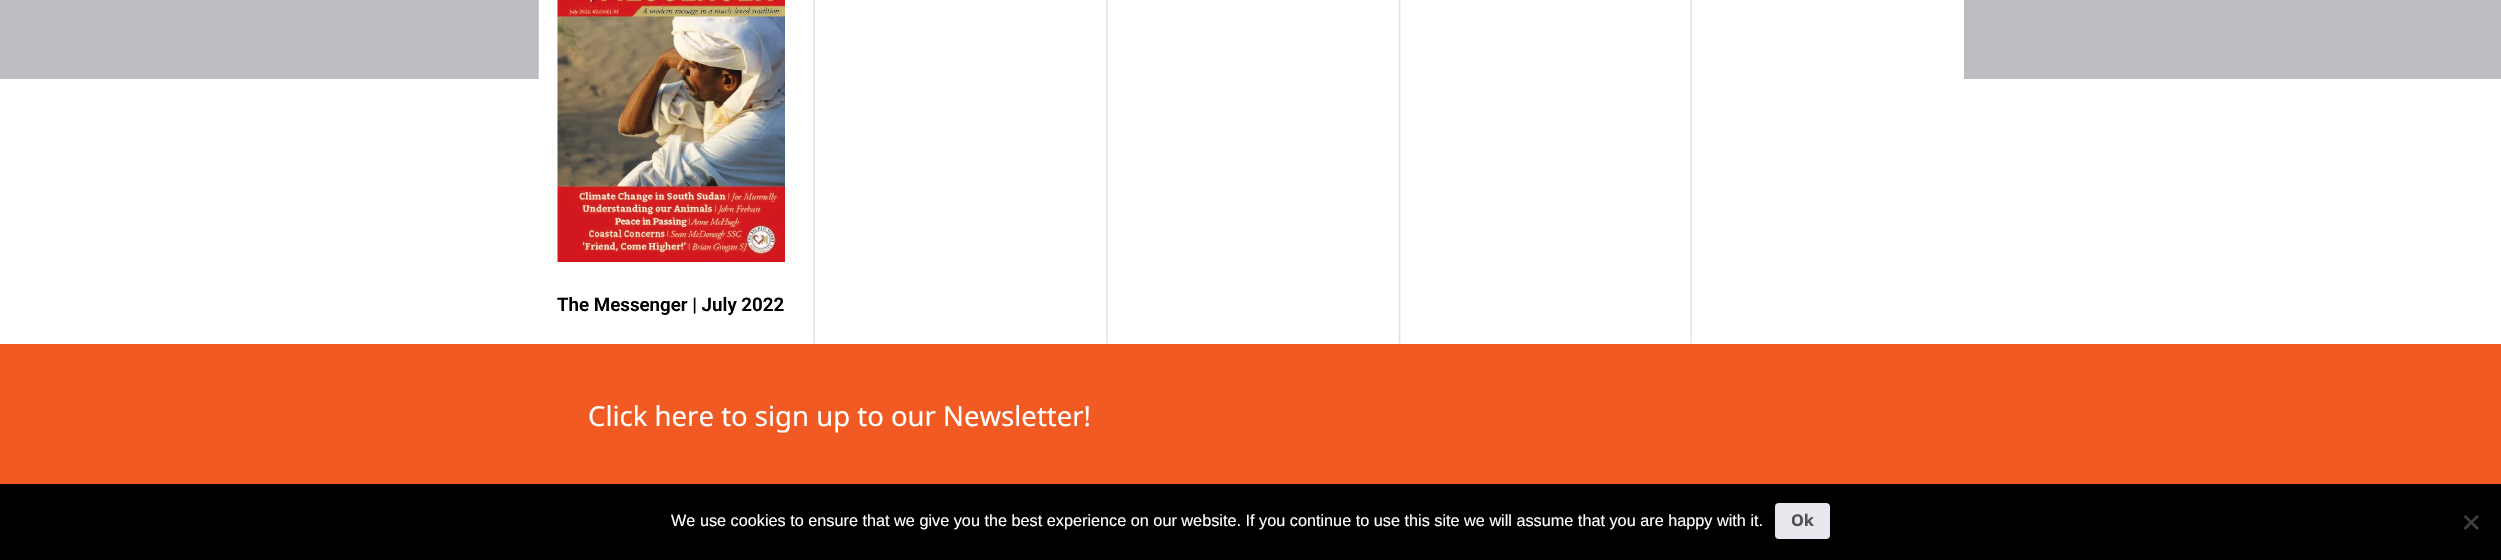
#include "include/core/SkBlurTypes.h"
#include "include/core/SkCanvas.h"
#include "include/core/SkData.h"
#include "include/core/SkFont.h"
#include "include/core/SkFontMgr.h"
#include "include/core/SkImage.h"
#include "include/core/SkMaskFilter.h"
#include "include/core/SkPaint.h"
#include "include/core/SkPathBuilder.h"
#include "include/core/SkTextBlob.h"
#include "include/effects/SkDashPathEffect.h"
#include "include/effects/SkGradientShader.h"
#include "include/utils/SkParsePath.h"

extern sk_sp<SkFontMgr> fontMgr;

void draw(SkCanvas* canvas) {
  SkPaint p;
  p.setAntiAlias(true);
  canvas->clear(SK_ColorWHITE);
  p.setColor(SkColorSetRGB(189, 190, 194));
  canvas->drawRect(SkRect::MakeLTRB(0, 0, 2501, 79), p);
  p.setColor(SK_ColorWHITE);
  canvas->drawRect(SkRect::MakeLTRB(539, 0, 1964, 79), p);
  canvas->drawImageRect(SkImages::DeferredFromEncodedData(SkData::MakeFromFileName("images/1.png")), SkRect::MakeLTRB(538, 0, 1692, 344), SkSamplingOptions());
  canvas->drawImageRect(SkImages::DeferredFromEncodedData(SkData::MakeFromFileName("images/2.png")), SkRect::MakeLTRB(557, 0, 785, 262), SkSamplingOptions());
  p.setColor(SkColorSetRGB(241, 90, 34));
  canvas->drawRect(SkRect::MakeLTRB(0, 344, 2501, 484), p);
  p.setColor(SK_ColorBLACK);
  canvas->drawRect(SkRect::MakeLTRB(0, 484, 2501, 560), p);
  p.setColor(SkColorSetRGB(233, 230, 237));
  canvas->drawRoundRect(SkRect::MakeLTRB(1775, 503, 1830, 539), 4, 4, p);
  p.setColor(SkColorSetRGB(64, 64, 64));
  canvas->drawPath(SkPathBuilder().moveTo(2477, 515).lineTo(2479, 516.5f).lineTo(2465.5f, 530).lineTo(2463.5f, 528).close().detach(), p);
  canvas->drawPath(SkPathBuilder().moveTo(2463.5f, 516.5f).lineTo(2465.5f, 515).lineTo(2479, 528).lineTo(2477, 530).close().detach(), p);
  SkFont font1(fontMgr->matchFamilyStyle("Roboto", SkFontStyle(600, SkFontStyle::kNormal_Width, SkFontStyle::kUpright_Slant)), 18.75f);
  font1.setSubpixel(true);
  p.setColor(SK_ColorBLACK);
  canvas->drawString("The Messenger | July 2022", 557, 311, font1, p);
  SkFont font2(fontMgr->matchFamilyStyle("Noto Sans", SkFontStyle::Normal()), 27.5f);
  font2.setSubpixel(true);
  p.setColor(SK_ColorWHITE);
  canvas->drawString("Click here to sign up to our Newsletter!", 588, 426, font2, p);
  SkFont font3(fontMgr->matchFamilyStyle("Liberation Sans", SkFontStyle::Normal()), 16.25f);
  font3.setSubpixel(true);
  canvas->drawString("We use cookies to ensure that we give you the best experience on our website. If you continue to use this site we will assume that you are happy with it.", 671, 526, font3, p);
  SkFont font4(fontMgr->matchFamilyStyle("Noto Sans", SkFontStyle::Bold()), 16.25f);
  font4.setSubpixel(true);
  p.setColor(SkColorSetRGB(81, 81, 81));
  canvas->drawString("Ok", 1791, 526, font4, p);
}
